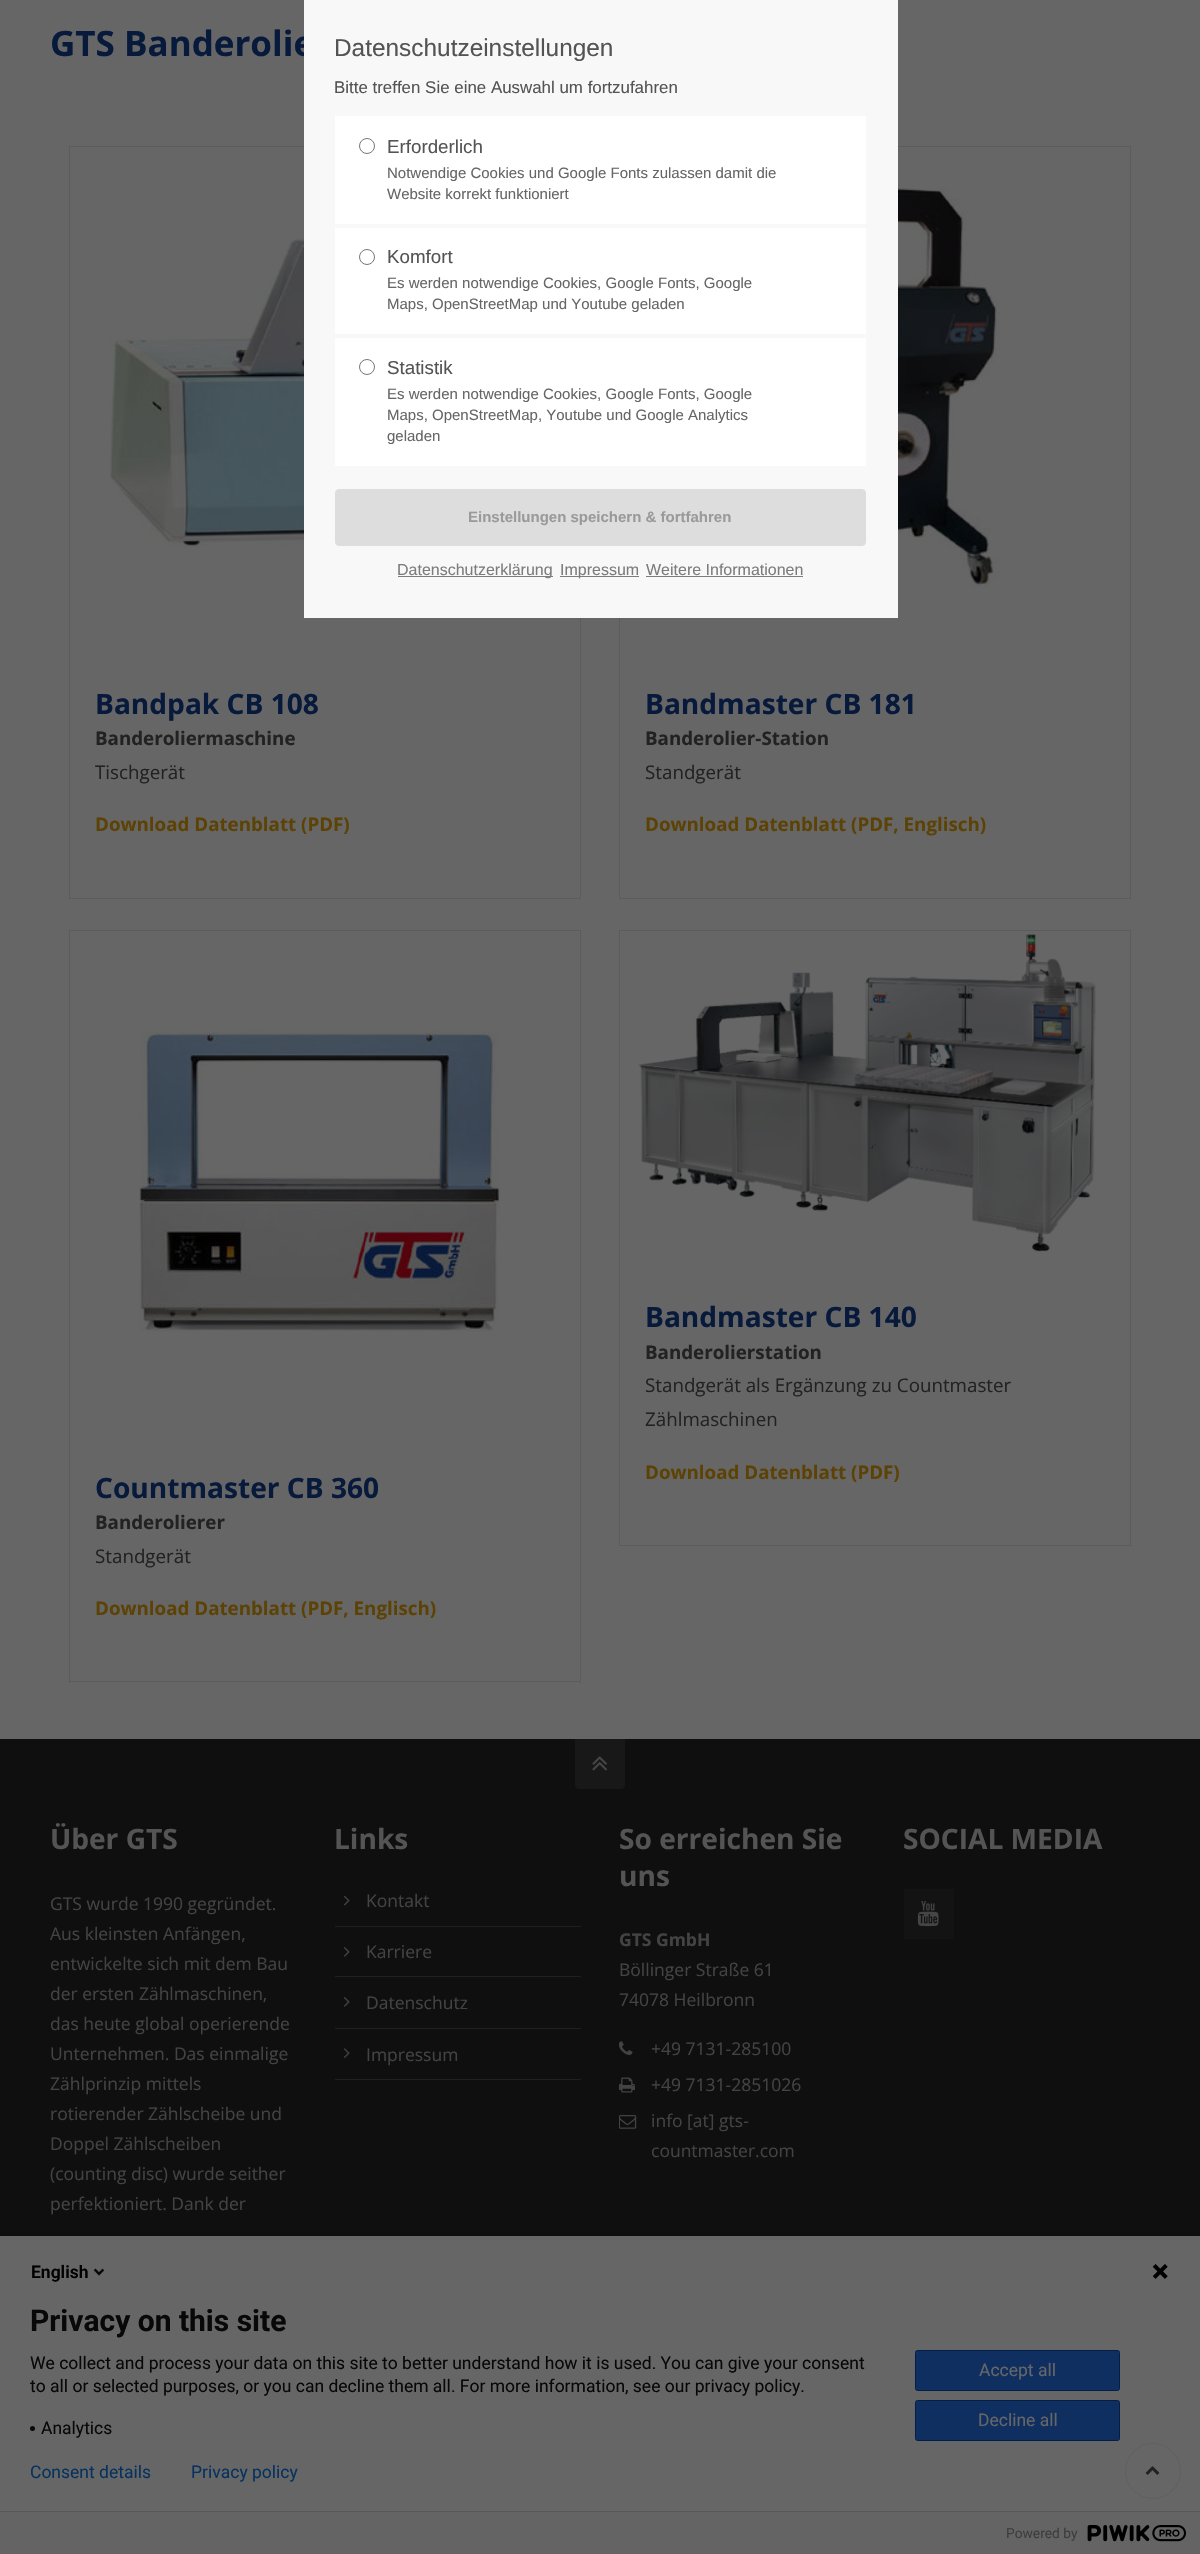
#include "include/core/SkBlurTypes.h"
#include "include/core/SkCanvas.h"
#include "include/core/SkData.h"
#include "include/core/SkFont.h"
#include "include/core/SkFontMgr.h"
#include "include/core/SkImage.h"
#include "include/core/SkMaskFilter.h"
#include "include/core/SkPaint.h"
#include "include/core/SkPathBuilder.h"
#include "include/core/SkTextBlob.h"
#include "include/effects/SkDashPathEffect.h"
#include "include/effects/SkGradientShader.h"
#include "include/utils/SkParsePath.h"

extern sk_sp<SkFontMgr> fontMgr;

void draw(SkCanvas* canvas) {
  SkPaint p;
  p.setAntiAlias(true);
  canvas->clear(SkColorSetRGB(102, 102, 102));
  p.setColor(SkColorSetRGB(92, 92, 92));
  canvas->drawRect(SkRect::MakeLTRB(69, 146, 304, 147), p);
  canvas->drawRect(SkRect::MakeLTRB(69, 146, 70, 648), p);
  canvas->drawImageRect(SkImages::DeferredFromEncodedData(SkData::MakeFromFileName("images/1.png")), SkRect::MakeLTRB(110, 237, 304, 548), SkSamplingOptions());
  canvas->drawRect(SkRect::MakeLTRB(580, 618, 581, 899), p);
  canvas->drawRect(SkRect::MakeLTRB(69, 898, 581, 899), p);
  canvas->drawRect(SkRect::MakeLTRB(69, 648, 70, 899), p);
  canvas->drawRect(SkRect::MakeLTRB(898, 146, 1131, 147), p);
  canvas->drawRect(SkRect::MakeLTRB(1130, 146, 1131, 648), p);
  canvas->drawImageRect(SkImages::DeferredFromEncodedData(SkData::MakeFromFileName("images/2.png")), SkRect::MakeLTRB(898, 179, 1000, 616), SkSamplingOptions());
  canvas->drawRect(SkRect::MakeLTRB(1130, 648, 1131, 899), p);
  canvas->drawRect(SkRect::MakeLTRB(619, 898, 1131, 899), p);
  canvas->drawRect(SkRect::MakeLTRB(619, 618, 620, 899), p);
  canvas->drawRect(SkRect::MakeLTRB(619, 930, 1131, 931), p);
  canvas->drawRect(SkRect::MakeLTRB(1130, 930, 1131, 1261), p);
  canvas->drawRect(SkRect::MakeLTRB(619, 930, 620, 1261), p);
  canvas->drawImageRect(SkImages::DeferredFromEncodedData(SkData::MakeFromFileName("images/3.png")), SkRect::MakeLTRB(638, 934, 1096, 1252), SkSamplingOptions());
  canvas->drawRect(SkRect::MakeLTRB(1130, 1261, 1131, 1546), p);
  canvas->drawRect(SkRect::MakeLTRB(619, 1545, 1131, 1546), p);
  canvas->drawRect(SkRect::MakeLTRB(619, 1261, 620, 1546), p);
  canvas->drawRect(SkRect::MakeLTRB(69, 930, 581, 931), p);
  canvas->drawRect(SkRect::MakeLTRB(580, 930, 581, 1431), p);
  canvas->drawRect(SkRect::MakeLTRB(69, 930, 70, 1431), p);
  canvas->drawImageRect(SkImages::DeferredFromEncodedData(SkData::MakeFromFileName("images/4.png")), SkRect::MakeLTRB(139, 1029, 500, 1332), SkSamplingOptions());
  canvas->drawRect(SkRect::MakeLTRB(580, 1431, 581, 1683), p);
  canvas->drawRect(SkRect::MakeLTRB(69, 1681, 581, 1682), p);
  canvas->drawRect(SkRect::MakeLTRB(69, 1431, 70, 1683), p);
  p.setColor(SkColorSetRGB(15, 15, 15));
  canvas->drawRect(SkRect::MakeLTRB(0, 1739, 1200, 2236), p);
  p.setColor(SkColorSetRGB(24, 24, 24));
  canvas->drawPath(SkPathBuilder().moveTo(575, 1739).lineTo(625, 1739).lineTo(625, 1785).cubicTo(625, 1787, 623, 1789, 621, 1789).lineTo(579, 1789).cubicTo(577, 1789, 575, 1787, 575, 1785).close().detach(), p);
  canvas->drawImageRect(SkImages::DeferredFromEncodedData(SkData::MakeFromFileName("images/5.png")), SkRect::MakeLTRB(592, 1756, 607, 1771), SkSamplingOptions());
  canvas->drawImageRect(SkImages::DeferredFromEncodedData(SkData::MakeFromFileName("images/6.png")), SkRect::MakeLTRB(344, 1895, 350, 1906), SkSamplingOptions());
  p.setColor(SkColorSetRGB(32, 32, 32));
  canvas->drawRect(SkRect::MakeLTRB(335, 1926, 581, 1927), p);
  canvas->drawImageRect(SkImages::DeferredFromEncodedData(SkData::MakeFromFileName("images/7.png")), SkRect::MakeLTRB(344, 1947, 350, 1957), SkSamplingOptions());
  canvas->drawRect(SkRect::MakeLTRB(335, 1976, 581, 1977), p);
  canvas->drawImageRect(SkImages::DeferredFromEncodedData(SkData::MakeFromFileName("images/7.png")), SkRect::MakeLTRB(344, 1997, 350, 2007), SkSamplingOptions());
  canvas->drawRect(SkRect::MakeLTRB(335, 2028, 581, 2029), p);
  canvas->drawImageRect(SkImages::DeferredFromEncodedData(SkData::MakeFromFileName("images/8.png")), SkRect::MakeLTRB(344, 2048, 350, 2058), SkSamplingOptions());
  canvas->drawRect(SkRect::MakeLTRB(335, 2079, 581, 2080), p);
  canvas->drawImageRect(SkImages::DeferredFromEncodedData(SkData::MakeFromFileName("images/9.png")), SkRect::MakeLTRB(619, 2041, 633, 2055), SkSamplingOptions());
  canvas->drawImageRect(SkImages::DeferredFromEncodedData(SkData::MakeFromFileName("images/10.png")), SkRect::MakeLTRB(619, 2077, 635, 2093), SkSamplingOptions());
  canvas->drawImageRect(SkImages::DeferredFromEncodedData(SkData::MakeFromFileName("images/11.png")), SkRect::MakeLTRB(619, 2115, 637, 2129), SkSamplingOptions());
  p.setColor(SkColorSetRGB(19, 19, 19));
  canvas->drawRect(SkRect::MakeLTRB(904, 1889, 954, 1939), p);
  canvas->drawImageRect(SkImages::DeferredFromEncodedData(SkData::MakeFromFileName("images/12.png")), SkRect::MakeLTRB(917, 1901, 939, 1927), SkSamplingOptions());
  p.setColor(SkColorSetARGB(36, 0, 0, 0));
  p.setMaskFilter(SkMaskFilter::MakeBlur(kNormal_SkBlurStyle, 3));
  canvas->drawRect(SkRect::MakeLTRB(-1, 2233, 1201, 2554), p);
  p.setMaskFilter(nullptr);
  p.setColor(SkColorSetRGB(102, 102, 102));
  canvas->drawRect(SkRect::MakeLTRB(0, 2236, 1200, 2511), p);
  p.setStyle(SkPaint::kStroke_Style);
  p.setStrokeWidth(1);
  p.setColor(SkColorSetRGB(94, 95, 94));
  canvas->drawCircle(1153, 2471, 27.5f, p);
  canvas->drawImageRect(SkImages::DeferredFromEncodedData(SkData::MakeFromFileName("images/13.png")), SkRect::MakeLTRB(1145, 2466, 1160, 2475), SkSamplingOptions());
  canvas->drawImageRect(SkImages::DeferredFromEncodedData(SkData::MakeFromFileName("images/14.png")), SkRect::MakeLTRB(93, 2268, 105, 2276), SkSamplingOptions());
  canvas->drawImageRect(SkImages::DeferredFromEncodedData(SkData::MakeFromFileName("images/15.png")), SkRect::MakeLTRB(1152, 2264, 1168, 2279), SkSamplingOptions());
  p.setStyle(SkPaint::kFill_Style);
  p.setColor(SkColorSetRGB(8, 8, 8));
  canvas->drawCircle(32.5f, 2428.5f, 2.5f, p);
  p.setColor(SkColorSetRGB(16, 47, 97));
  canvas->drawRoundRect(SkRect::MakeLTRB(915.5f, 2350.5f, 1119.5f, 2390.5f), 2, 2, p);
  p.setStyle(SkPaint::kStroke_Style);
  p.setColor(SkColorSetRGB(4, 30, 72));
  canvas->drawRoundRect(SkRect::MakeLTRB(915.5f, 2350.5f, 1119.5f, 2390.5f), 2, 2, p);
  p.setStyle(SkPaint::kFill_Style);
  p.setColor(SkColorSetRGB(16, 47, 97));
  canvas->drawRoundRect(SkRect::MakeLTRB(915.5f, 2400.5f, 1119.5f, 2440.5f), 2, 2, p);
  p.setStyle(SkPaint::kStroke_Style);
  p.setColor(SkColorSetRGB(4, 30, 72));
  canvas->drawRoundRect(SkRect::MakeLTRB(915.5f, 2400.5f, 1119.5f, 2440.5f), 2, 2, p);
  p.setStyle(SkPaint::kFill_Style);
  p.setColor(SkColorSetRGB(100, 100, 100));
  canvas->drawRect(SkRect::MakeLTRB(0, 2512, 1200, 2554), p);
  p.setColor(SkColorSetRGB(88, 88, 88));
  canvas->drawRect(SkRect::MakeLTRB(0, 2511, 1200, 2512), p);
  canvas->drawImageRect(SkImages::DeferredFromEncodedData(SkData::MakeFromFileName("images/16.png")), SkRect::MakeLTRB(1087, 2525, 1186, 2542), SkSamplingOptions());
  SkFont font1(fontMgr->matchFamilyStyle("Open Sans", SkFontStyle::Bold()), 35);
  font1.setSubpixel(true);
  p.setColor(SkColorSetRGB(8, 26, 59));
  canvas->drawString("GTS Banderolie", 50, 56, font1, p);
  SkFont font2(fontMgr->matchFamilyStyle("Open Sans", SkFontStyle::Bold()), 28.1f);
  font2.setSubpixel(true);
  canvas->drawString("Bandpak CB 108", 95, 714, font2, p);
  SkFont font3(fontMgr->matchFamilyStyle("Open Sans", SkFontStyle::Bold()), 18.75f);
  font3.setSubpixel(true);
  p.setColor(SkColorSetRGB(35, 34, 34));
  canvas->drawString("Banderoliermaschine", 95, 745, font3, p);
  SkFont font4(fontMgr->matchFamilyStyle("Open Sans", SkFontStyle::Normal()), 18.75f);
  font4.setSubpixel(true);
  canvas->drawString("Tischgerät", 95, 779, font4, p);
  p.setColor(SkColorSetRGB(92, 66, 5));
  canvas->drawString("Download Datenblatt (PDF)", 95, 831, font3, p);
  p.setColor(SkColorSetRGB(8, 26, 59));
  canvas->drawString("Bandmaster CB 181", 645, 714, font2, p);
  p.setColor(SkColorSetRGB(35, 34, 34));
  canvas->drawString("Banderolier-Station", 645, 745, font3, p);
  canvas->drawString("Standgerät", 645, 779, font4, p);
  p.setColor(SkColorSetRGB(92, 66, 5));
  canvas->drawString("Download Datenblatt (PDF, Englisch)", 645, 831, font3, p);
  p.setColor(SkColorSetRGB(8, 26, 59));
  canvas->drawString("Bandmaster CB 140", 645, 1327, font2, p);
  p.setColor(SkColorSetRGB(35, 34, 34));
  canvas->drawString("Banderolierstation", 645, 1359, font3, p);
  canvas->drawString("Standgerät als Ergänzung zu Countmaster", 645, 1392, font4, p);
  canvas->drawString("Zählmaschinen", 645, 1426, font4, p);
  p.setColor(SkColorSetRGB(92, 66, 5));
  canvas->drawString("Download Datenblatt (PDF)", 645, 1479, font3, p);
  p.setColor(SkColorSetRGB(8, 26, 59));
  canvas->drawString("Countmaster CB 360", 95, 1498, font2, p);
  p.setColor(SkColorSetRGB(35, 34, 34));
  canvas->drawString("Banderolierer", 95, 1529, font3, p);
  canvas->drawString("Standgerät", 95, 1563, font4, p);
  p.setColor(SkColorSetRGB(92, 66, 5));
  canvas->drawString("Download Datenblatt (PDF, Englisch)", 95, 1615, font3, p);
  p.setColor(SkColorSetRGB(84, 84, 84));
  canvas->drawString("Über GTS", 50, 1849, font2, p);
  SkFont font5(fontMgr->matchFamilyStyle("Open Sans", SkFontStyle::Normal()), 17.5f);
  font5.setSubpixel(true);
  p.setColor(SkColorSetRGB(67, 67, 67));
  canvas->drawString("GTS wurde 1990 gegründet.", 50, 1910, font5, p);
  canvas->drawString("Aus kleinsten Anfängen,", 50, 1940, font5, p);
  canvas->drawString("entwickelte sich mit dem Bau", 50, 1970, font5, p);
  canvas->drawString("der ersten Zählmaschinen,", 50, 2000, font5, p);
  canvas->drawString("das heute global operierende", 50, 2030, font5, p);
  canvas->drawString("Unternehmen. Das einmalige", 50, 2060, font5, p);
  canvas->drawString("Zählprinzip mittels", 50, 2090, font5, p);
  canvas->drawString("rotierender Zählscheibe und", 50, 2120, font5, p);
  canvas->drawString("Doppel Zählscheiben", 50, 2150, font5, p);
  canvas->drawString("(counting disc) wurde seither", 50, 2180, font5, p);
  canvas->drawString("perfektioniert. Dank der", 50, 2210, font5, p);
  p.setColor(SkColorSetRGB(84, 84, 84));
  canvas->drawString("Links", 334, 1849, font2, p);
  p.setColor(SkColorSetRGB(67, 67, 67));
  canvas->drawString("Kontakt", 366, 1907, font5, p);
  canvas->drawString("Karriere", 366, 1958, font5, p);
  canvas->drawString("Datenschutz", 366, 2009, font5, p);
  canvas->drawString("Impressum", 366, 2061, font5, p);
  p.setColor(SkColorSetRGB(84, 84, 84));
  canvas->drawString("So erreichen Sie", 619, 1849, font2, p);
  canvas->drawString("uns", 619, 1886, font2, p);
  SkFont font6(fontMgr->matchFamilyStyle("Open Sans", SkFontStyle::Bold()), 17.5f);
  font6.setSubpixel(true);
  p.setColor(SkColorSetRGB(67, 67, 67));
  canvas->drawString("GTS GmbH", 619, 1946, font6, p);
  canvas->drawString("Böllinger Straße 61", 619, 1976, font5, p);
  canvas->drawString("74078 Heilbronn", 619, 2006, font5, p);
  canvas->drawString("+49 7131-285100", 651, 2055, font5, p);
  canvas->drawString("+49 7131-2851026", 651, 2091, font5, p);
  canvas->drawString("info [at] gts-", 651, 2127, font5, p);
  canvas->drawString("countmaster.com", 651, 2157, font5, p);
  p.setColor(SkColorSetRGB(84, 84, 84));
  canvas->drawString("SOCIAL MEDIA", 903, 1849, font2, p);
  p.setColor(SkColorSetRGB(248, 248, 248));
  canvas->drawRect(SkRect::MakeLTRB(304, 0, 898, 618), p);
  SkFont font7(fontMgr->matchFamilyStyle("Liberation Sans", SkFontStyle::Normal()), 24.4f);
  font7.setSubpixel(true);
  p.setColor(SkColorSetRGB(84, 84, 84));
  canvas->drawString("Datenschutzeinstellungen", 334, 56, font7, p);
  SkFont font8(fontMgr->matchFamilyStyle("Liberation Sans", SkFontStyle::Normal()), 16.9f);
  font8.setSubpixel(true);
  canvas->drawString("Bitte treffen Sie eine Auswahl um fortzufahren", 334, 93, font8, p);
  p.setColor(SK_ColorWHITE);
  canvas->drawRect(SkRect::MakeLTRB(335, 116, 866, 224), p);
  p.setStyle(SkPaint::kStroke_Style);
  p.setColor(SkColorSetRGB(118, 118, 118));
  canvas->drawCircle(367, 146, 7.5f, p);
  SkFont font9(fontMgr->matchFamilyStyle("Liberation Sans", SkFontStyle::Normal()), 18.75f);
  font9.setSubpixel(true);
  p.setStyle(SkPaint::kFill_Style);
  p.setColor(SkColorSetRGB(84, 84, 84));
  canvas->drawString("Erforderlich", 387, 153, font9, p);
  SkFont font10(fontMgr->matchFamilyStyle("Liberation Sans", SkFontStyle::Normal()), 15);
  font10.setSubpixel(true);
  p.setColor(SkColorSetRGB(102, 102, 102));
  canvas->drawString("Notwendige Cookies und Google Fonts zulassen damit die", 387, 178, font10, p);
  canvas->drawString("Website korrekt funktioniert", 387, 199, font10, p);
  p.setColor(SK_ColorWHITE);
  canvas->drawRect(SkRect::MakeLTRB(335, 228, 866, 334), p);
  p.setStyle(SkPaint::kStroke_Style);
  p.setColor(SkColorSetRGB(118, 118, 118));
  canvas->drawCircle(367, 257, 7.5f, p);
  p.setStyle(SkPaint::kFill_Style);
  p.setColor(SkColorSetRGB(84, 84, 84));
  canvas->drawString("Komfort", 387, 263, font9, p);
  p.setColor(SkColorSetRGB(102, 102, 102));
  canvas->drawString("Es werden notwendige Cookies, Google Fonts, Google", 387, 288, font10, p);
  canvas->drawString("Maps, OpenStreetMap und Youtube geladen", 387, 309, font10, p);
  p.setColor(SK_ColorWHITE);
  canvas->drawRect(SkRect::MakeLTRB(335, 338, 866, 466), p);
  p.setStyle(SkPaint::kStroke_Style);
  p.setColor(SkColorSetRGB(118, 118, 118));
  canvas->drawCircle(367, 367, 7.5f, p);
  p.setStyle(SkPaint::kFill_Style);
  p.setColor(SkColorSetRGB(84, 84, 84));
  canvas->drawString("Statistik", 387, 374, font9, p);
  p.setColor(SkColorSetRGB(102, 102, 102));
  canvas->drawString("Es werden notwendige Cookies, Google Fonts, Google", 387, 399, font10, p);
  canvas->drawString("Maps, OpenStreetMap, Youtube und Google Analytics", 387, 420, font10, p);
  canvas->drawString("geladen", 387, 441, font10, p);
  p.setColor(SkColorSetRGB(221, 221, 221));
  canvas->drawRoundRect(SkRect::MakeLTRB(335.5f, 489.5f, 865.5f, 545.5f), 3.5f, 3.5f, p);
  p.setStyle(SkPaint::kStroke_Style);
  canvas->drawRoundRect(SkRect::MakeLTRB(335.5f, 489.5f, 865.5f, 545.5f), 3.5f, 3.5f, p);
  SkFont font11(fontMgr->matchFamilyStyle("Liberation Sans", SkFontStyle::Bold()), 15);
  font11.setSubpixel(true);
  p.setStyle(SkPaint::kFill_Style);
  p.setColor(SkColorSetRGB(154, 154, 154));
  canvas->drawString("Einstellungen speichern & fortfahren", 468, 522, font11, p);
  p.setColor(SkColorSetRGB(124, 124, 124));
  canvas->drawRect(SkRect::MakeLTRB(398, 576, 553, 577), p);
  SkFont font12(fontMgr->matchFamilyStyle("Liberation Sans", SkFontStyle::Normal()), 16);
  font12.setSubpixel(true);
  canvas->drawString("Datenschutzerklärung", 397, 575, font12, p);
  canvas->drawRect(SkRect::MakeLTRB(560, 576, 639, 577), p);
  canvas->drawString("Impressum", 560, 575, font12, p);
  canvas->drawString("Weitere Informationen", 646, 575, font12, p);
  canvas->drawRect(SkRect::MakeLTRB(646, 576, 803, 577), p);
  SkFont font13(fontMgr->matchFamilyStyle("Roboto", SkFontStyle(600, SkFontStyle::kNormal_Width, SkFontStyle::kUpright_Slant)), 17.5f);
  font13.setSubpixel(true);
  p.setColor(SK_ColorBLACK);
  canvas->drawString("English", 31, 2278, font13, p);
  SkFont font14(fontMgr->matchFamilyStyle("Roboto", SkFontStyle::Bold()), 30);
  font14.setSubpixel(true);
  p.setColor(SkColorSetRGB(8, 8, 8));
  canvas->drawString("Privacy on this site", 30, 2331, font14, p);
  SkFont font15(fontMgr->matchFamilyStyle("Roboto", SkFontStyle::Normal()), 17.5f);
  font15.setSubpixel(true);
  canvas->drawString("We collect and process your data on this site to better understand how it is used. You can give your consent", 30, 2369, font15, p);
  canvas->drawString("to all or selected purposes, or you can decline them all. For more information, see our privacy policy.", 30, 2392, font15, p);
  canvas->drawString("Analytics", 41, 2434, font15, p);
  p.setColor(SkColorSetRGB(102, 102, 102));
  canvas->drawString("Accept all", 979, 2376, font15, p);
  canvas->drawString("Decline all", 978, 2426, font15, p);
  p.setColor(SkColorSetRGB(6, 50, 96));
  canvas->drawString("Consent details", 30, 2478, font15, p);
  canvas->drawString("Privacy policy", 191, 2478, font15, p);
  SkFont font16(fontMgr->matchFamilyStyle("Roboto", SkFontStyle::Normal()), 13.75f);
  font16.setSubpixel(true);
  p.setColor(SkColorSetRGB(61, 61, 61));
  canvas->drawString("Powered by", 1006, 2538, font16, p);
}
